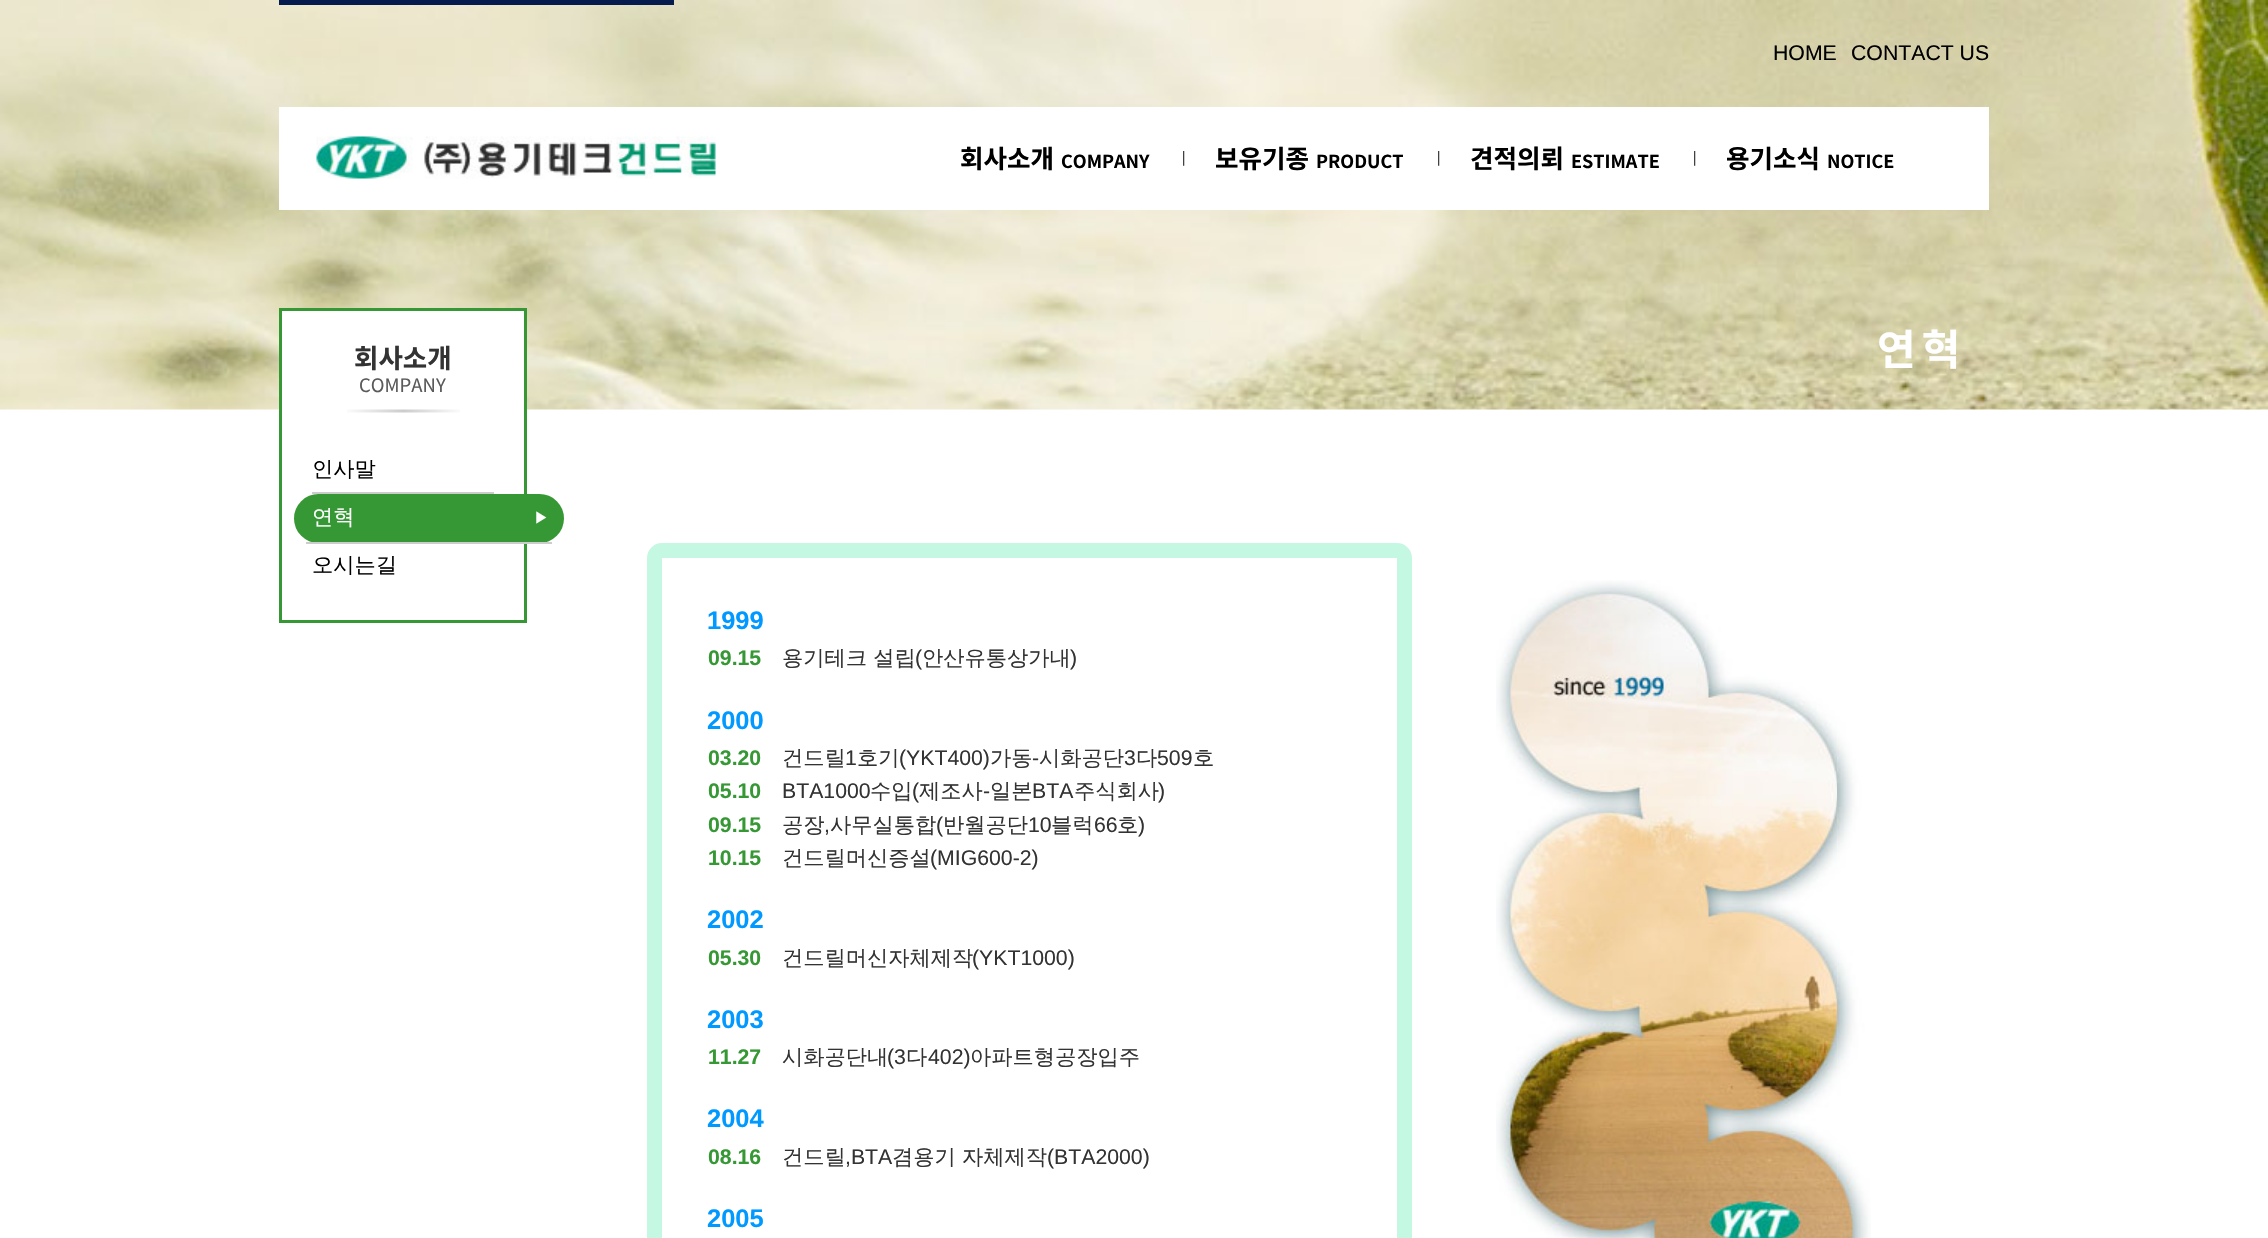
#include "include/core/SkBlurTypes.h"
#include "include/core/SkCanvas.h"
#include "include/core/SkData.h"
#include "include/core/SkFont.h"
#include "include/core/SkFontMgr.h"
#include "include/core/SkImage.h"
#include "include/core/SkMaskFilter.h"
#include "include/core/SkPaint.h"
#include "include/core/SkPathBuilder.h"
#include "include/core/SkTextBlob.h"
#include "include/effects/SkDashPathEffect.h"
#include "include/effects/SkGradientShader.h"
#include "include/utils/SkParsePath.h"

extern sk_sp<SkFontMgr> fontMgr;

void draw(SkCanvas* canvas) {
  SkPaint p;
  p.setAntiAlias(true);
  auto spacedText = [&](const char* s, float x, float y, const SkFont& font, const SkPaint& ink, float letter, float word) {
    std::vector<SkGlyphID> glyphs(font.countText(s, strlen(s), SkTextEncoding::kUTF8));
    std::vector<float> xs(glyphs.size());
    font.textToGlyphs(s, strlen(s), SkTextEncoding::kUTF8, glyphs);
    font.getXPos(glyphs, xs, x);
    float extra = 0;
    for (size_t i = 0; i < glyphs.size(); i++) {
      xs[i] += extra;
      extra += letter + word * (glyphs[i] == font.unicharToGlyph(' '));
    }
    canvas->drawTextBlob(SkTextBlob::MakeFromPosHGlyphs(glyphs, xs, y, font), 0, 0, ink);
  };
  canvas->clear(SK_ColorWHITE);
  canvas->drawImageRect(SkImages::DeferredFromEncodedData(SkData::MakeFromFileName("images/1.png")), SkRect::MakeLTRB(0, 0, 2268, 410), SkSamplingOptions());
  p.setColor(SkColorSetRGB(6, 27, 77));
  canvas->drawRect(SkRect::MakeLTRB(279, 0, 674, 5), p);
  p.setColor(SK_ColorWHITE);
  canvas->drawRect(SkRect::MakeLTRB(279, 107, 1989, 210), p);
  canvas->drawImageRect(SkImages::DeferredFromEncodedData(SkData::MakeFromFileName("images/2.png")), SkRect::MakeLTRB(316, 136, 716, 179), SkSamplingOptions());
  canvas->drawRect(SkRect::MakeLTRB(282, 311, 524, 410), p);
  p.setStyle(SkPaint::kStroke_Style);
  p.setStrokeWidth(3);
  p.setColor(SkColorSetRGB(54, 152, 52));
  canvas->drawRect(SkRect::MakeLTRB(280.5f, 309.5f, 525.5f, 621.5f), p);
  canvas->drawImageRect(SkImages::DeferredFromEncodedData(SkData::MakeFromFileName("images/3.png")), SkRect::MakeLTRB(347, 409, 460, 413), SkSamplingOptions());
  p.setStyle(SkPaint::kFill_Style);
  p.setColor(SkColorSetRGB(204, 204, 204));
  canvas->drawRect(SkRect::MakeLTRB(312, 492, 494, 494), p);
  p.setColor(SkColorSetRGB(54, 152, 52));
  canvas->drawRoundRect(SkRect::MakeLTRB(294, 494, 564, 543), 24.5f, 24.5f, p);
  p.setColor(SkColorSetRGB(204, 204, 204));
  canvas->drawRect(SkRect::MakeLTRB(306, 542, 552, 544), p);
  p.setStyle(SkPaint::kStroke_Style);
  p.setStrokeWidth(15);
  p.setColor(SkColorSetRGB(197, 248, 226));
  canvas->drawRoundRect(SkRect::MakeLTRB(654.5f, 550.5f, 1404.5f, 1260.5f), 7.5f, 7.5f, p);
  canvas->drawImageRect(SkImages::DeferredFromEncodedData(SkData::MakeFromFileName("images/4.png")), SkRect::MakeLTRB(1496, 580, 1871, 1238), SkSamplingOptions());
  SkFont font1(fontMgr->matchFamilyStyle("Liberation Sans", SkFontStyle::Normal()), 21.25f);
  font1.setSubpixel(true);
  p.setStyle(SkPaint::kFill_Style);
  p.setColor(SK_ColorBLACK);
  canvas->drawString("HOME", 1773, 60, font1, p);
  canvas->drawString("CONTACT US", 1851, 60, font1, p);
  SkFont font2(fontMgr->matchFamilyStyle("Noto Sans KR", SkFontStyle::Bold()), 25.5f);
  font2.setSubpixel(true);
  canvas->drawString("회사소개", 960, 168, font2, p);
  SkFont font3(fontMgr->matchFamilyStyle("Noto Sans KR", SkFontStyle::Bold()), 18);
  font3.setSubpixel(true);
  canvas->drawString("COMPANY", 1061, 168, font3, p);
  SkFont font4(fontMgr->matchFamilyStyle("Noto Sans KR", SkFontStyle::Normal()), 13);
  font4.setSubpixel(true);
  canvas->drawString("|", 1182, 162, font4, p);
  canvas->drawString("보유기종", 1215, 168, font2, p);
  canvas->drawString("PRODUCT", 1316, 168, font3, p);
  canvas->drawString("|", 1437, 162, font4, p);
  canvas->drawString("견적의뢰", 1470, 168, font2, p);
  canvas->drawString("ESTIMATE", 1571, 168, font3, p);
  canvas->drawString("|", 1693, 162, font4, p);
  canvas->drawString("용기소식", 1726, 168, font2, p);
  canvas->drawString("NOTICE", 1827, 168, font3, p);
  SkFont font5(fontMgr->matchFamilyStyle("Noto Sans KR", SkFontStyle::Bold()), 26.5f);
  font5.setSubpixel(true);
  p.setColor(SkColorSetRGB(51, 51, 51));
  canvas->drawString("회사소개", 354, 368, font5, p);
  SkFont font6(fontMgr->matchFamilyStyle("Noto Sans KR", SkFontStyle::Normal()), 18.5f);
  font6.setSubpixel(true);
  p.setColor(SkColorSetRGB(90, 90, 90));
  canvas->drawString("COMPANY", 359, 392, font6, p);
  SkFont font7(fontMgr->matchFamilyStyle("WenQuanYi Zen Hei", SkFontStyle(500, SkFontStyle::kNormal_Width, SkFontStyle::kUpright_Slant)), 21.25f);
  font7.setSubpixel(true);
  p.setColor(SK_ColorBLACK);
  canvas->drawString("인사말", 312, 476, font7, p);
  p.setColor(SK_ColorWHITE);
  canvas->drawString("연혁", 312, 524, font7, p);
  SkFont font8(fontMgr->matchFamilyStyle("WenQuanYi Zen Hei", SkFontStyle(500, SkFontStyle::kNormal_Width, SkFontStyle::kUpright_Slant)), 15);
  font8.setSubpixel(true);
  canvas->drawString("▶", 534, 523, font8, p);
  p.setColor(SK_ColorBLACK);
  canvas->drawString("오시는길", 312, 572, font7, p);
  SkFont font9(fontMgr->matchFamilyStyle("Noto Sans KR", SkFontStyle::Bold()), 42);
  font9.setSubpixel(true);
  p.setColor(SK_ColorWHITE);
  spacedText("연혁", 1877, 365, font9, p, 6, 0);
  SkFont font10(fontMgr->matchFamilyStyle("Liberation Sans", SkFontStyle::Bold()), 25.5f);
  font10.setSubpixel(true);
  p.setColor(SkColorSetRGB(0, 153, 255));
  canvas->drawString("1999", 707, 629, font10, p);
  SkFont font11(fontMgr->matchFamilyStyle("Liberation Sans", SkFontStyle::Bold()), 21.25f);
  font11.setSubpixel(true);
  p.setColor(SkColorSetRGB(54, 152, 52));
  canvas->drawString("09.15", 708, 665, font11, p);
  p.setColor(SkColorSetRGB(51, 51, 51));
  canvas->drawString("용기테크 설립", 782, 665, font7, p);
  canvas->drawString("(", 915, 665, font1, p);
  canvas->drawString("안산유통상가내", 922, 665, font7, p);
  canvas->drawString(")", 1070, 665, font1, p);
  p.setColor(SkColorSetRGB(0, 153, 255));
  canvas->drawString("2000", 707, 729, font10, p);
  p.setColor(SkColorSetRGB(54, 152, 52));
  canvas->drawString("03.20", 708, 765, font11, p);
  p.setColor(SkColorSetRGB(51, 51, 51));
  canvas->drawString("건드릴", 782, 765, font7, p);
  canvas->drawString("1", 845, 765, font1, p);
  canvas->drawString("호기", 857, 765, font7, p);
  canvas->drawString("(YKT400)", 899, 765, font1, p);
  canvas->drawString("가동", 990, 765, font7, p);
  canvas->drawString("-", 1032, 765, font1, p);
  canvas->drawString("시화공단", 1039, 765, font7, p);
  canvas->drawString("3", 1124, 765, font1, p);
  canvas->drawString("다", 1136, 765, font7, p);
  canvas->drawString("509", 1157, 765, font1, p);
  canvas->drawString("호", 1193, 765, font7, p);
  p.setColor(SkColorSetRGB(54, 152, 52));
  canvas->drawString("05.10", 708, 798, font11, p);
  p.setColor(SkColorSetRGB(51, 51, 51));
  canvas->drawString("BTA1000", 782, 798, font1, p);
  canvas->drawString("수입", 870, 798, font7, p);
  canvas->drawString("(", 912, 798, font1, p);
  canvas->drawString("제조사", 919, 798, font7, p);
  canvas->drawString("-", 983, 798, font1, p);
  canvas->drawString("일본", 990, 798, font7, p);
  canvas->drawString("BTA", 1032, 798, font1, p);
  canvas->drawString("주식회사", 1074, 798, font7, p);
  canvas->drawString(")", 1158, 798, font1, p);
  p.setColor(SkColorSetRGB(54, 152, 52));
  canvas->drawString("09.15", 708, 832, font11, p);
  p.setColor(SkColorSetRGB(51, 51, 51));
  canvas->drawString("공장", 782, 832, font7, p);
  canvas->drawString(",", 824, 832, font1, p);
  canvas->drawString("사무실통합", 830, 832, font7, p);
  canvas->drawString("(", 936, 832, font1, p);
  canvas->drawString("반월공단", 943, 832, font7, p);
  canvas->drawString("10", 1028, 832, font1, p);
  canvas->drawString("블럭", 1051, 832, font7, p);
  canvas->drawString("66", 1094, 832, font1, p);
  canvas->drawString("호", 1117, 832, font7, p);
  canvas->drawString(")", 1138, 832, font1, p);
  p.setColor(SkColorSetRGB(54, 152, 52));
  canvas->drawString("10.15", 708, 865, font11, p);
  p.setColor(SkColorSetRGB(51, 51, 51));
  canvas->drawString("건드릴머신증설", 782, 865, font7, p);
  canvas->drawString("(MIG600-2)", 930, 865, font1, p);
  p.setColor(SkColorSetRGB(0, 153, 255));
  canvas->drawString("2002", 707, 928, font10, p);
  p.setColor(SkColorSetRGB(54, 152, 52));
  canvas->drawString("05.30", 708, 965, font11, p);
  p.setColor(SkColorSetRGB(51, 51, 51));
  canvas->drawString("건드릴머신자체제작", 782, 965, font7, p);
  canvas->drawString("(YKT1000)", 972, 965, font1, p);
  p.setColor(SkColorSetRGB(0, 153, 255));
  canvas->drawString("2003", 707, 1028, font10, p);
  p.setColor(SkColorSetRGB(54, 152, 52));
  canvas->drawString("11.27", 708, 1064, font11, p);
  p.setColor(SkColorSetRGB(51, 51, 51));
  canvas->drawString("시화공단내", 782, 1064, font7, p);
  canvas->drawString("(3", 887, 1064, font1, p);
  canvas->drawString("다", 906, 1064, font7, p);
  canvas->drawString("402)", 928, 1064, font1, p);
  canvas->drawString("아파트형공장입주", 970, 1064, font7, p);
  p.setColor(SkColorSetRGB(0, 153, 255));
  canvas->drawString("2004", 707, 1127, font10, p);
  p.setColor(SkColorSetRGB(54, 152, 52));
  canvas->drawString("08.16", 708, 1164, font11, p);
  p.setColor(SkColorSetRGB(51, 51, 51));
  canvas->drawString("건드릴", 782, 1164, font7, p);
  canvas->drawString(",BTA", 845, 1164, font1, p);
  canvas->drawString("겸용기 자체제작", 892, 1164, font7, p);
  canvas->drawString("(BTA2000)", 1047, 1164, font1, p);
  p.setColor(SkColorSetRGB(0, 153, 255));
  canvas->drawString("2005", 707, 1227, font10, p);
}
